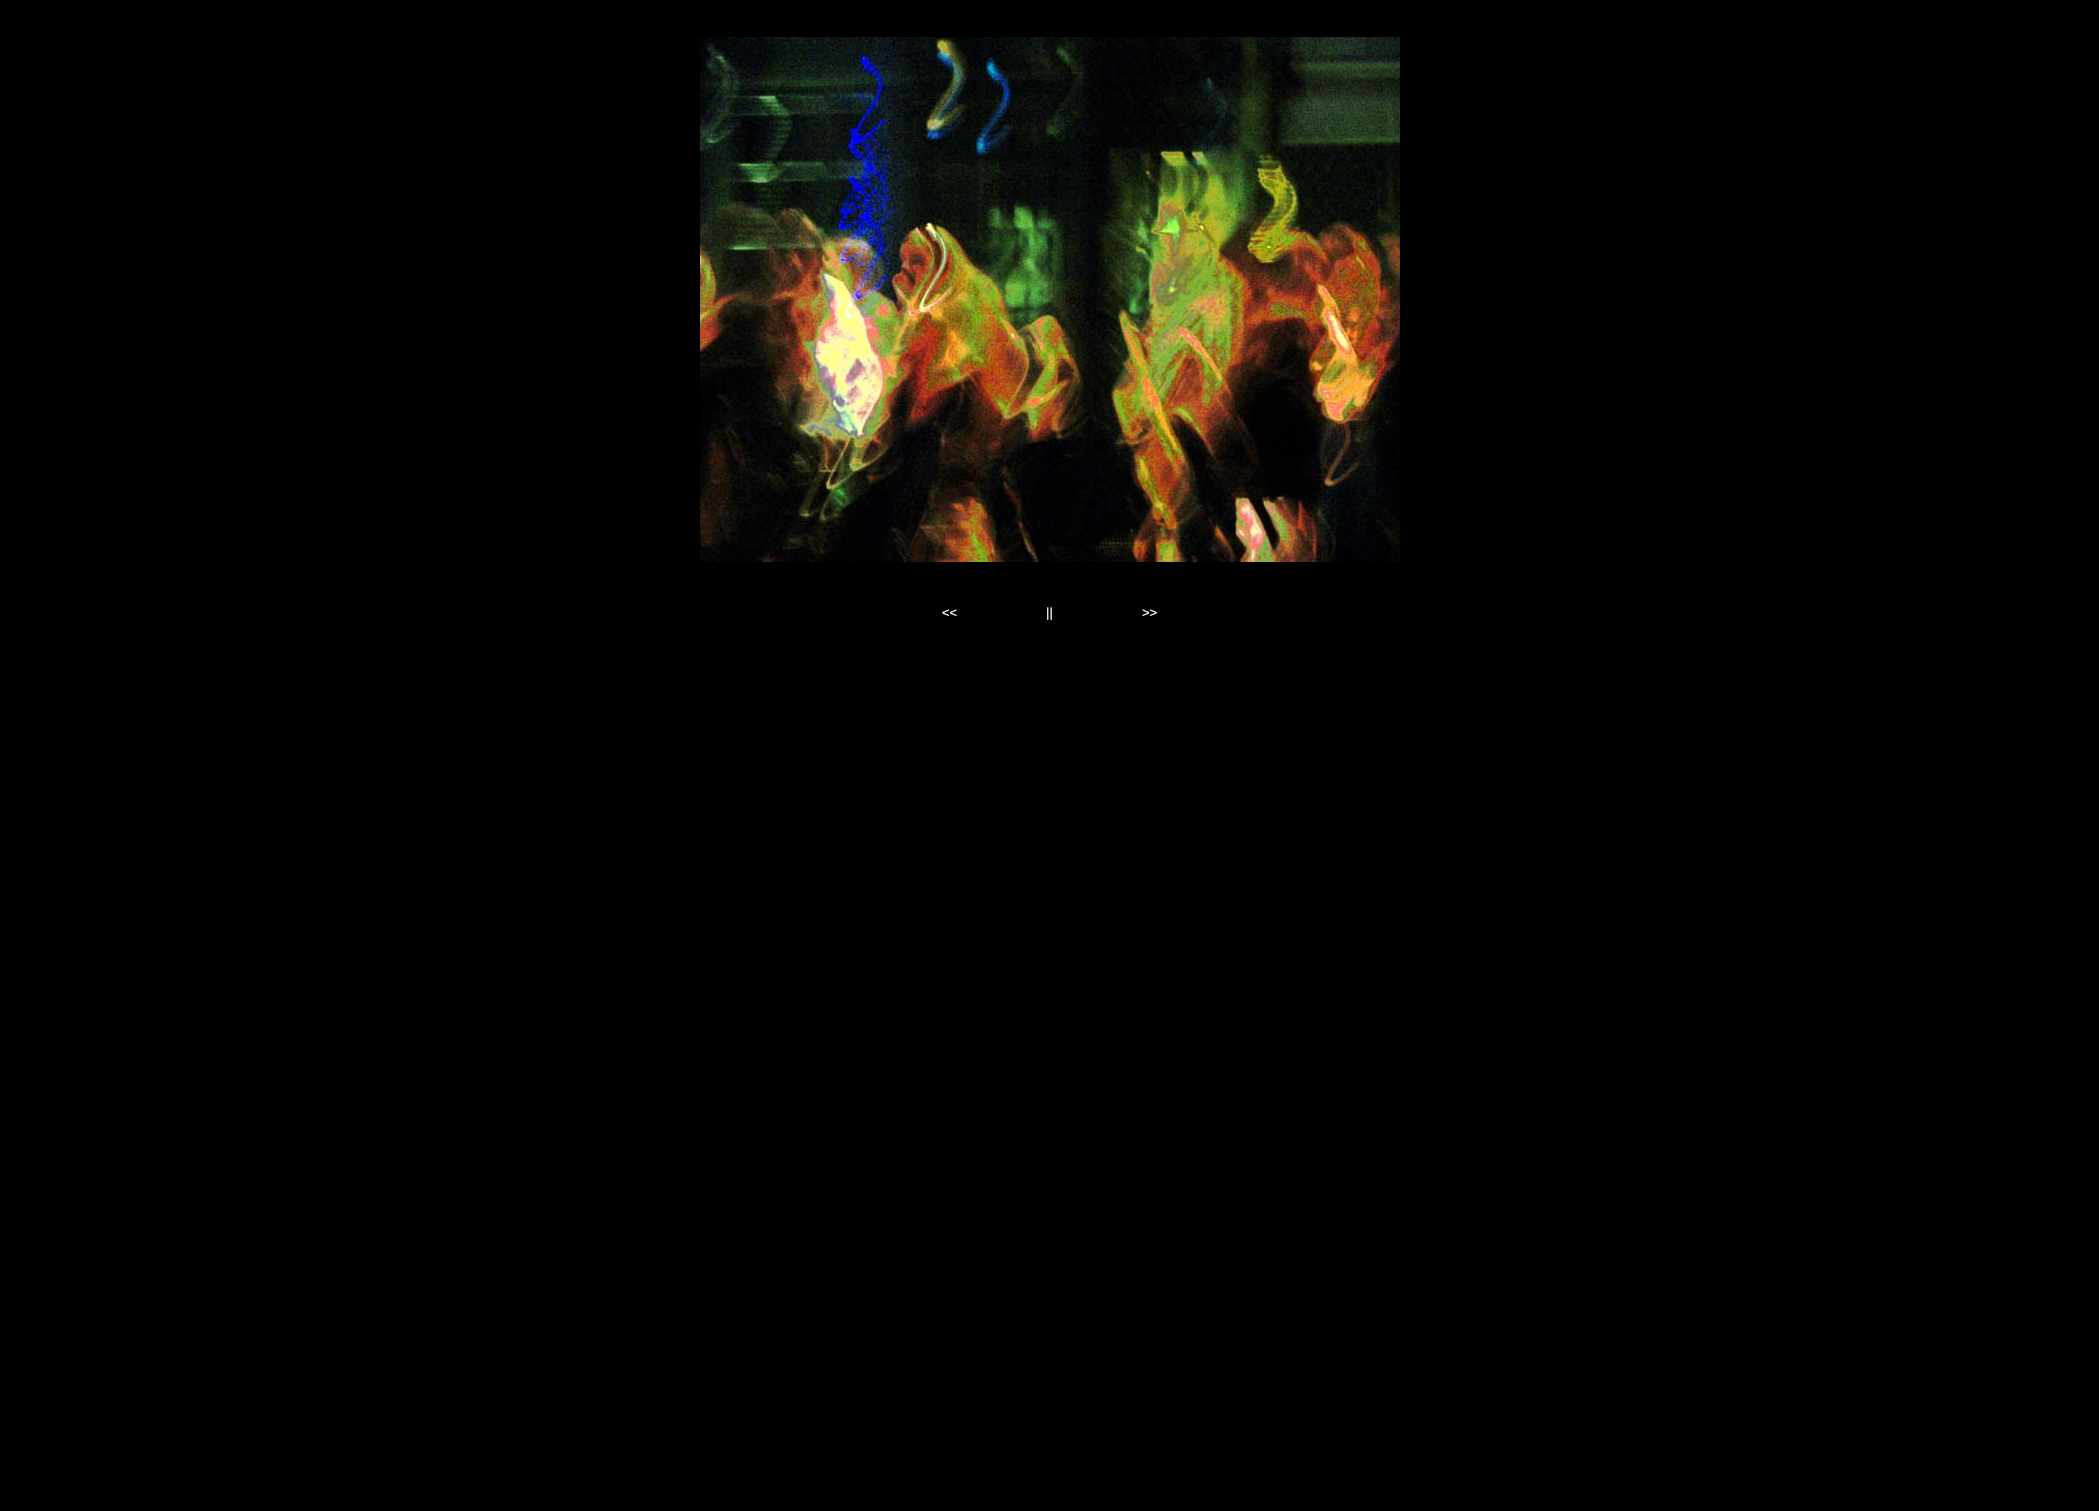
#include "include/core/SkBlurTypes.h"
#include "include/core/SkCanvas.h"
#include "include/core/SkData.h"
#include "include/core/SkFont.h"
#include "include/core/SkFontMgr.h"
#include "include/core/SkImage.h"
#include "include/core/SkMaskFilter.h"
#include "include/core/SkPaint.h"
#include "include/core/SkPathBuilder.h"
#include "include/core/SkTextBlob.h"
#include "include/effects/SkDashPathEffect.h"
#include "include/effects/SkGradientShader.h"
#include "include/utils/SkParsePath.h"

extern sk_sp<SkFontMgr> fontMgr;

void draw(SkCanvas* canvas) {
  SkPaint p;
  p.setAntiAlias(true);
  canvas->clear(SK_ColorBLACK);
  canvas->drawImageRect(SkImages::DeferredFromEncodedData(SkData::MakeFromFileName("images/1.png")), SkRect::MakeLTRB(700, 37, 1400, 562), SkSamplingOptions());
  SkFont font1(fontMgr->matchFamilyStyle("Liberation Sans", SkFontStyle::Normal()), 13);
  font1.setSubpixel(true);
  p.setColor(SK_ColorWHITE);
  canvas->drawString("<<", 942, 617, font1, p);
  canvas->drawString("||", 1046, 617, font1, p);
  canvas->drawString(">>", 1142, 617, font1, p);
}
